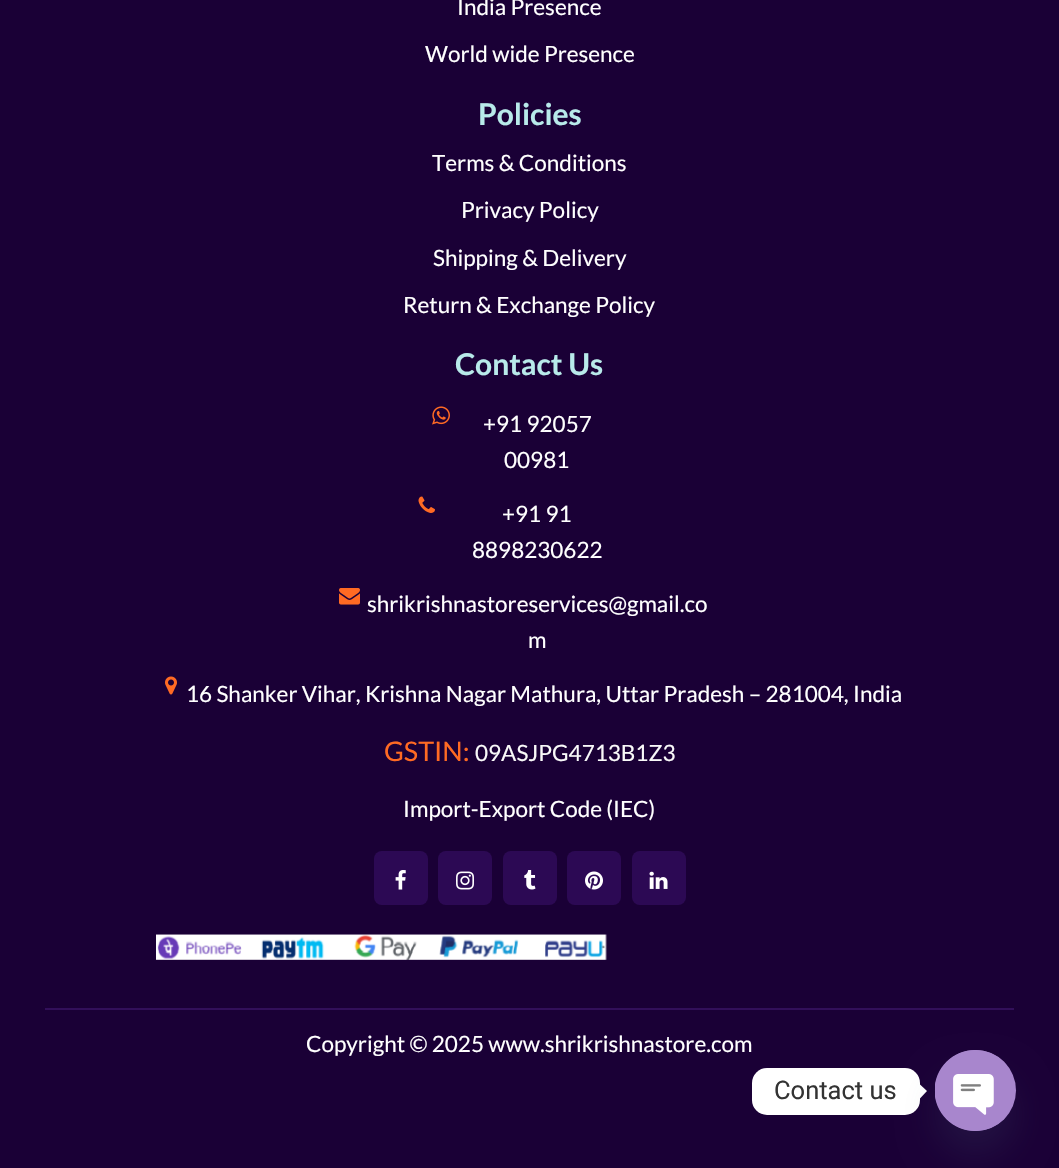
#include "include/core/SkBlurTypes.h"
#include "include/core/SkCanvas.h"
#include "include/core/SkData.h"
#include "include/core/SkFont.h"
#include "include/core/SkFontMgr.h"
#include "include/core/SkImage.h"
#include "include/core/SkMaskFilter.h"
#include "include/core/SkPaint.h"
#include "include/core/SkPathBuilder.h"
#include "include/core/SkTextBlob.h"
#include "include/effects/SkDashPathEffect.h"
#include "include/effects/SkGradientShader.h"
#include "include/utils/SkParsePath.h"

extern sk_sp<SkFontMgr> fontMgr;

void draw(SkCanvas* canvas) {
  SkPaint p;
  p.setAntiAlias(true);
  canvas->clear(SkColorSetRGB(26, 0, 54));
  canvas->drawImageRect(SkImages::DeferredFromEncodedData(SkData::MakeFromFileName("images/1.png")), SkRect::MakeLTRB(432, 406, 450, 425), SkSamplingOptions());
  canvas->drawImageRect(SkImages::DeferredFromEncodedData(SkData::MakeFromFileName("images/2.png")), SkRect::MakeLTRB(418, 496, 435, 513), SkSamplingOptions());
  canvas->drawImageRect(SkImages::DeferredFromEncodedData(SkData::MakeFromFileName("images/3.png")), SkRect::MakeLTRB(339, 588, 360, 605), SkSamplingOptions());
  canvas->drawImageRect(SkImages::DeferredFromEncodedData(SkData::MakeFromFileName("images/4.png")), SkRect::MakeLTRB(165, 676, 177, 695), SkSamplingOptions());
  p.setColor(SkColorSetRGB(44, 9, 84));
  canvas->drawRoundRect(SkRect::MakeLTRB(374, 851, 428, 905), 8, 8, p);
  canvas->drawImageRect(SkImages::DeferredFromEncodedData(SkData::MakeFromFileName("images/5.png")), SkRect::MakeLTRB(395, 870, 406, 890), SkSamplingOptions());
  canvas->drawRoundRect(SkRect::MakeLTRB(438, 851, 492, 905), 8, 8, p);
  canvas->drawImageRect(SkImages::DeferredFromEncodedData(SkData::MakeFromFileName("images/6.png")), SkRect::MakeLTRB(456, 871, 474, 890), SkSamplingOptions());
  canvas->drawRoundRect(SkRect::MakeLTRB(503, 851, 557, 905), 8, 8, p);
  canvas->drawImageRect(SkImages::DeferredFromEncodedData(SkData::MakeFromFileName("images/7.png")), SkRect::MakeLTRB(524, 870, 536, 890), SkSamplingOptions());
  canvas->drawRoundRect(SkRect::MakeLTRB(567, 851, 621, 905), 8, 8, p);
  canvas->drawImageRect(SkImages::DeferredFromEncodedData(SkData::MakeFromFileName("images/8.png")), SkRect::MakeLTRB(585, 871, 603, 890), SkSamplingOptions());
  canvas->drawRoundRect(SkRect::MakeLTRB(632, 851, 686, 905), 8, 8, p);
  canvas->drawImageRect(SkImages::DeferredFromEncodedData(SkData::MakeFromFileName("images/9.png")), SkRect::MakeLTRB(649, 871, 668, 889), SkSamplingOptions());
  canvas->drawImageRect(SkImages::DeferredFromEncodedData(SkData::MakeFromFileName("images/10.png")), SkRect::MakeLTRB(156, 934, 607, 960), SkSamplingOptions());
  p.setColor(SkColorSetRGB(50, 15, 90));
  canvas->drawRect(SkRect::MakeLTRB(45, 1008, 1014, 1010), p);
  p.setColor(SK_ColorWHITE);
  canvas->drawRoundRect(SkRect::MakeLTRB(752, 1068, 920, 1115), 15, 15, p);
  canvas->drawPath(SkPathBuilder().moveTo(919.5f, 1099).lineTo(919.5f, 1084).lineTo(927, 1091).close().detach(), p);
  p.setColor(SkColorSetARGB(41, 73, 104, 126));
  p.setMaskFilter(SkMaskFilter::MakeBlur(kNormal_SkBlurStyle, 18));
  canvas->drawRoundRect(SkRect::MakeLTRB(935, 1074, 1016, 1155), 40.5f, 40.5f, p);
  p.setMaskFilter(nullptr);
  p.setColor(SkColorSetRGB(168, 134, 205));
  canvas->drawCircle(975.5f, 1090.5f, 40.5f, p);
  canvas->drawImageRect(SkImages::DeferredFromEncodedData(SkData::MakeFromFileName("images/11.png")), SkRect::MakeLTRB(935, 1050, 1007, 1131), SkSamplingOptions());
  SkFont font1(fontMgr->matchFamilyStyle("Lato", SkFontStyle::Normal()), 22.5f);
  font1.setSubpixel(true);
  p.setColor(SK_ColorWHITE);
  canvas->drawString("India Presence", 457, 15, font1, p);
  canvas->drawString("World wide Presence", 425, 62, font1, p);
  SkFont font2(fontMgr->matchFamilyStyle("Lato", SkFontStyle::Bold()), 30);
  font2.setSubpixel(true);
  p.setColor(SkColorSetRGB(184, 234, 234));
  canvas->drawString("Policies", 478, 125, font2, p);
  p.setColor(SK_ColorWHITE);
  canvas->drawString("Terms & Conditions", 432, 171, font1, p);
  canvas->drawString("Privacy Policy", 461, 218, font1, p);
  canvas->drawString("Shipping & Delivery", 433, 266, font1, p);
  canvas->drawString("Return & Exchange Policy", 403, 313, font1, p);
  p.setColor(SkColorSetRGB(184, 234, 234));
  canvas->drawString("Contact Us", 455, 375, font2, p);
  p.setColor(SK_ColorWHITE);
  canvas->drawString("+91 92057", 483, 432, font1, p);
  canvas->drawString("00981", 504, 468, font1, p);
  canvas->drawString("+91 91", 502, 522, font1, p);
  canvas->drawString("8898230622", 472, 558, font1, p);
  canvas->drawString("shrikrishnastoreservices@gmail.co", 367, 612, font1, p);
  canvas->drawString("m", 528, 648, font1, p);
  canvas->drawString("16 Shanker Vihar, Krishna Nagar Mathura, Uttar Pradesh – 281004, India", 186, 702, font1, p);
  SkFont font3(fontMgr->matchFamilyStyle("Lato", SkFontStyle::Normal()), 27);
  font3.setSubpixel(true);
  p.setColor(SkColorSetRGB(255, 106, 35));
  canvas->drawString("GSTIN:", 384, 761, font3, p);
  p.setColor(SkColorSetRGB(249, 249, 249));
  canvas->drawString("09ASJPG4713B1Z3", 475, 761, font1, p);
  p.setColor(SK_ColorWHITE);
  canvas->drawString("Import-Export Code (IEC)", 403, 817, font1, p);
  canvas->drawString("Copyright © 2025 www.shrikrishnastore.com", 306, 1052, font1, p);
  SkFont font4(fontMgr->matchFamilyStyle("Roboto", SkFontStyle::Normal()), 25.5f);
  font4.setSubpixel(true);
  p.setColor(SkColorSetRGB(51, 51, 51));
  canvas->drawString("Contact us", 774, 1099, font4, p);
}
